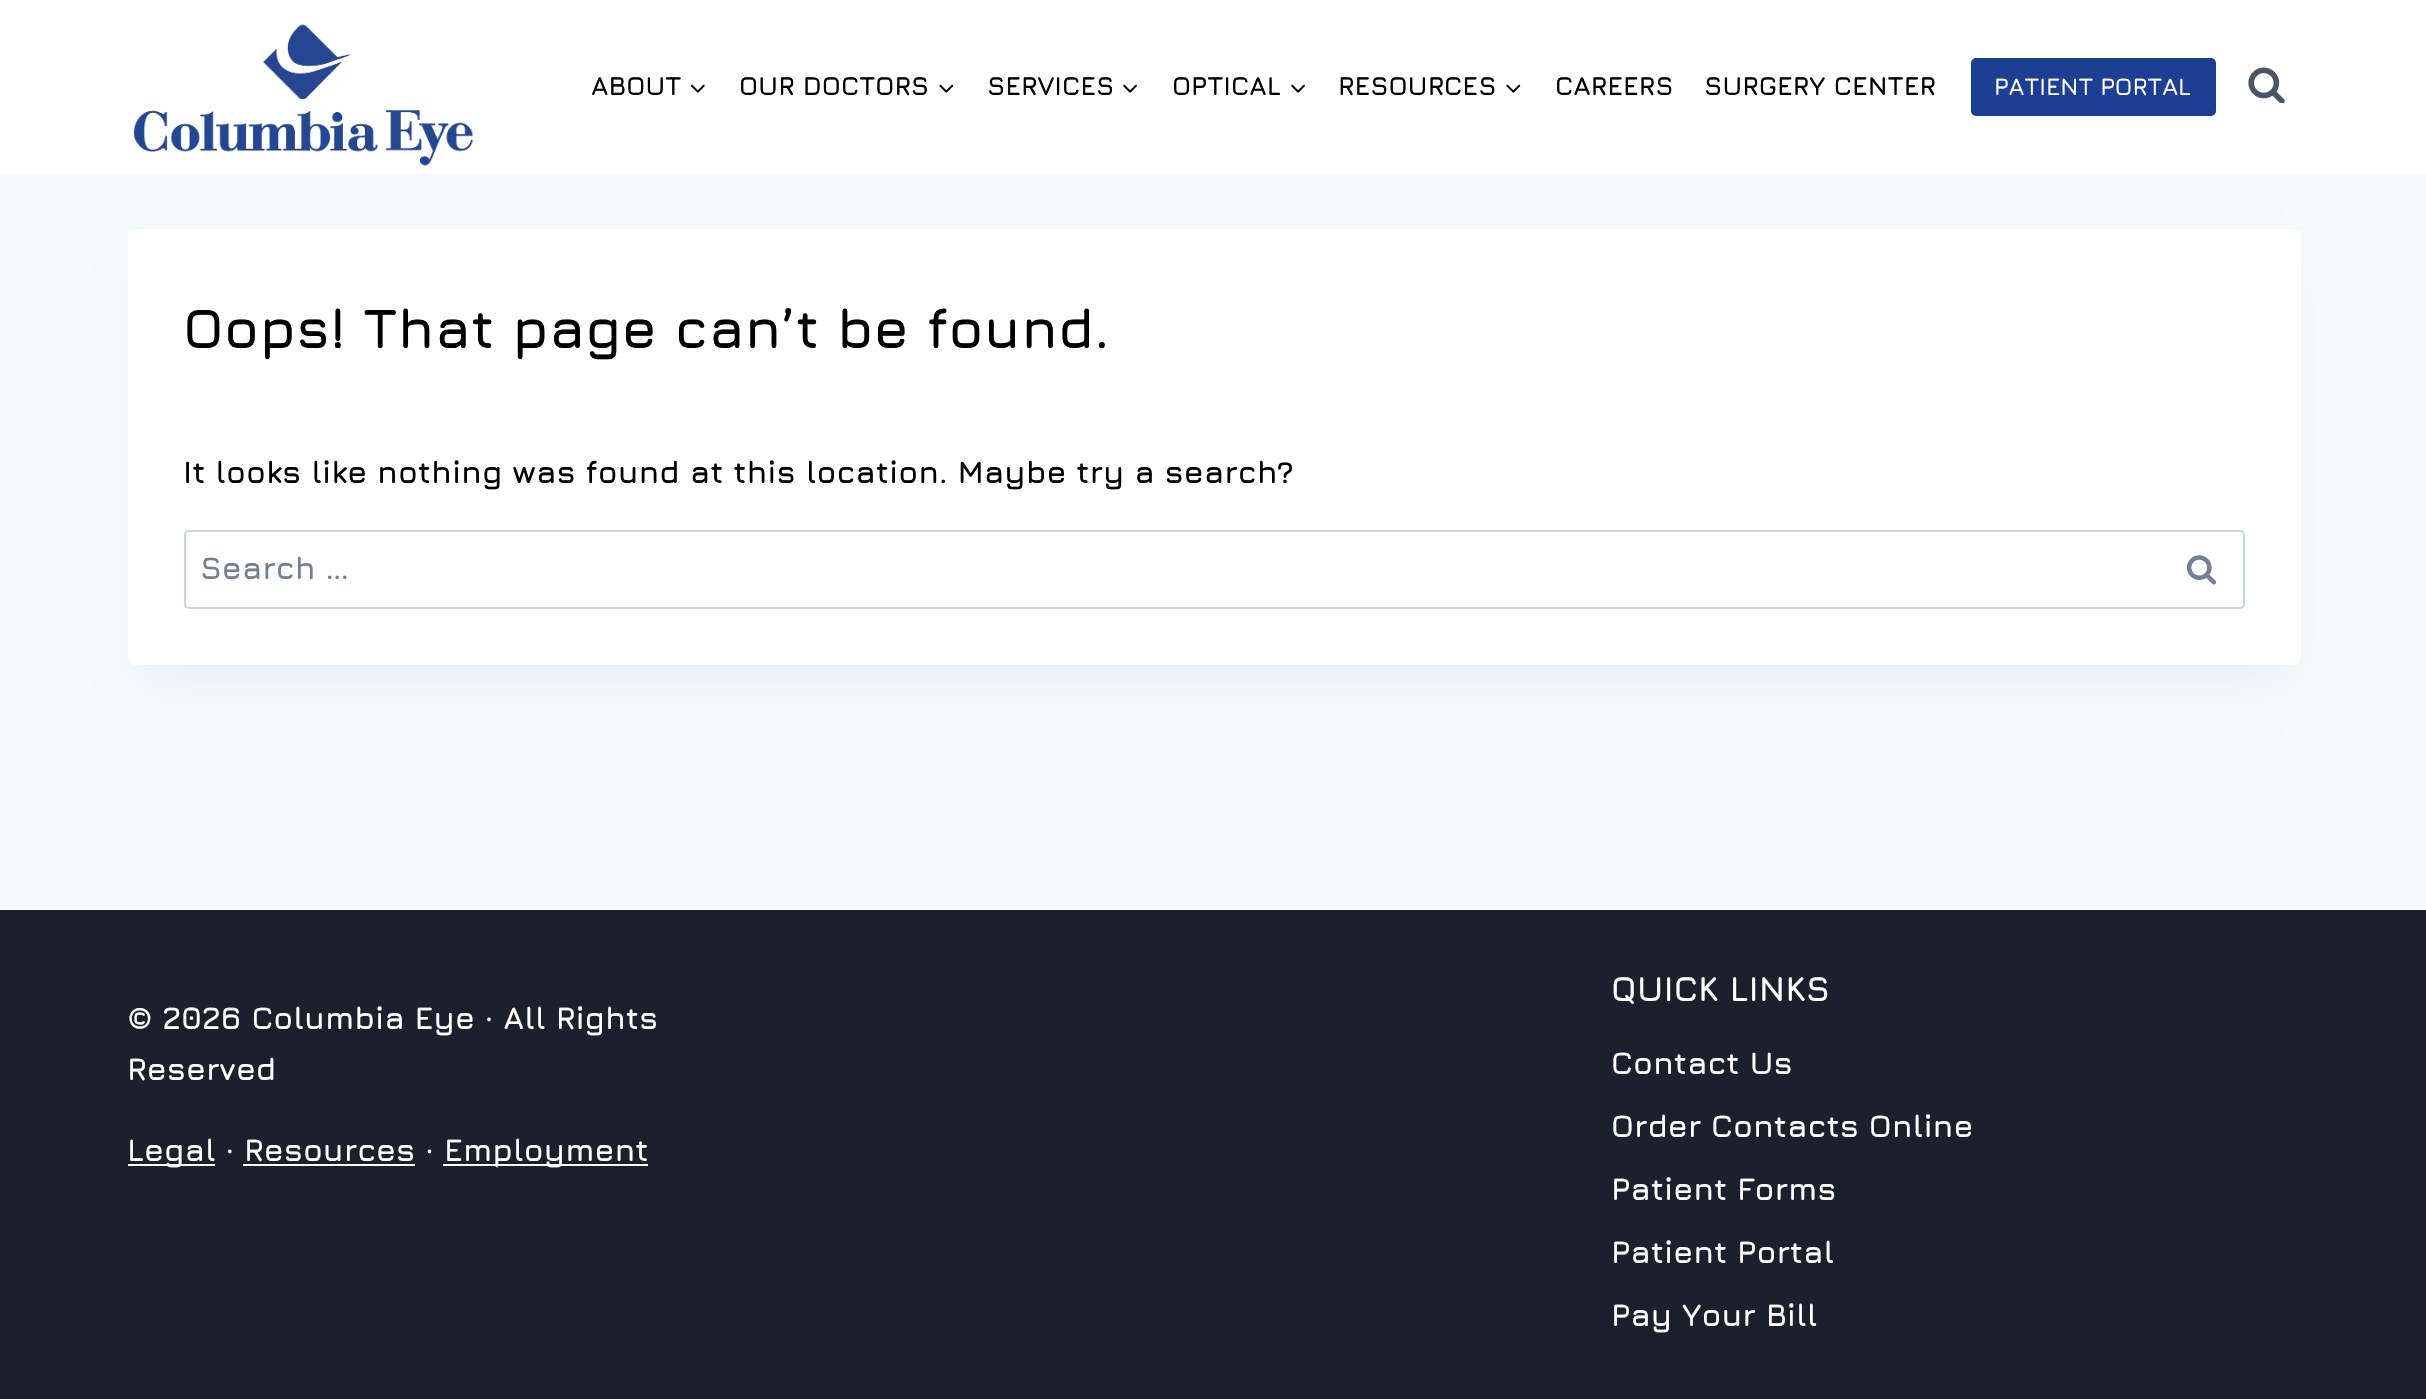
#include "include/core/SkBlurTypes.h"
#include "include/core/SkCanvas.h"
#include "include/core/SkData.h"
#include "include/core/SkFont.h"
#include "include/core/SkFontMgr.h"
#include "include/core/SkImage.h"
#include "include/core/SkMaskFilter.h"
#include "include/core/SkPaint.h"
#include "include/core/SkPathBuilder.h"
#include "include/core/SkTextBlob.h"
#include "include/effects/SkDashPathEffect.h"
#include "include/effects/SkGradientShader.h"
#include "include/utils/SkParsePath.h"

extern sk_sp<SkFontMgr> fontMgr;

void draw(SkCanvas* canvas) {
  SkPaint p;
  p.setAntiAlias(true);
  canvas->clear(SkColorSetRGB(247, 250, 252));
  p.setColor(SK_ColorWHITE);
  canvas->drawRect(SkRect::MakeLTRB(0, 0, 2426, 173), p);
  canvas->drawImageRect(SkImages::DeferredFromEncodedData(SkData::MakeFromFileName("images/1.png")), SkRect::MakeLTRB(133, 24, 474, 166), SkSamplingOptions());
  canvas->drawImageRect(SkImages::DeferredFromEncodedData(SkData::MakeFromFileName("images/2.png")), SkRect::MakeLTRB(690, 84, 705, 93), SkSamplingOptions());
  canvas->drawImageRect(SkImages::DeferredFromEncodedData(SkData::MakeFromFileName("images/3.png")), SkRect::MakeLTRB(939, 84, 954, 93), SkSamplingOptions());
  canvas->drawImageRect(SkImages::DeferredFromEncodedData(SkData::MakeFromFileName("images/4.png")), SkRect::MakeLTRB(1123, 84, 1137, 93), SkSamplingOptions());
  canvas->drawImageRect(SkImages::DeferredFromEncodedData(SkData::MakeFromFileName("images/4.png")), SkRect::MakeLTRB(1291, 84, 1305, 93), SkSamplingOptions());
  canvas->drawImageRect(SkImages::DeferredFromEncodedData(SkData::MakeFromFileName("images/3.png")), SkRect::MakeLTRB(1506, 84, 1521, 93), SkSamplingOptions());
  p.setColor(SkColorSetRGB(28, 63, 148));
  canvas->drawRoundRect(SkRect::MakeLTRB(1971, 58, 2216, 116), 5, 5, p);
  canvas->drawImageRect(SkImages::DeferredFromEncodedData(SkData::MakeFromFileName("images/5.png")), SkRect::MakeLTRB(2248, 67, 2285, 103), SkSamplingOptions());
  p.setColor(SkColorSetARGB(13, 0, 0, 0));
  p.setMaskFilter(SkMaskFilter::MakeBlur(kNormal_SkBlurStyle, 22));
  canvas->drawRect(SkRect::MakeLTRB(145, 273, 2284, 674), p);
  p.setMaskFilter(nullptr);
  p.setColor(SK_ColorWHITE);
  canvas->drawRoundRect(SkRect::MakeLTRB(128, 229, 2301, 665), 7, 7, p);
  p.setStyle(SkPaint::kStroke_Style);
  p.setStrokeWidth(2);
  p.setColor(SkColorSetRGB(203, 213, 224));
  canvas->drawRoundRect(SkRect::MakeLTRB(185, 531, 2244, 608), 4, 4, p);
  canvas->drawImageRect(SkImages::DeferredFromEncodedData(SkData::MakeFromFileName("images/6.png")), SkRect::MakeLTRB(2186, 555, 2217, 585), SkSamplingOptions());
  p.setStyle(SkPaint::kFill_Style);
  p.setColor(SkColorSetRGB(26, 32, 44));
  canvas->drawRect(SkRect::MakeLTRB(0, 910, 2426, 1399), p);
  p.setColor(SK_ColorWHITE);
  canvas->drawRect(SkRect::MakeLTRB(128, 1164, 215, 1166), p);
  canvas->drawRect(SkRect::MakeLTRB(443, 1164, 648, 1166), p);
  canvas->drawRect(SkRect::MakeLTRB(243, 1164, 415, 1166), p);
  SkFont font1(fontMgr->matchFamilyStyle("Jura", SkFontStyle::Bold()), 26.25f);
  font1.setSubpixel(true);
  p.setColor(SK_ColorBLACK);
  canvas->drawString("ABOUT", 591, 95, font1, p);
  canvas->drawString("OUR DOCTORS", 739, 95, font1, p);
  canvas->drawString("SERVICES", 987, 95, font1, p);
  canvas->drawString("OPTICAL", 1172, 95, font1, p);
  canvas->drawString("RESOURCES", 1338, 95, font1, p);
  canvas->drawString("CAREERS", 1555, 95, font1, p);
  canvas->drawString("SURGERY CENTER", 1704, 95, font1, p);
  SkFont font2(fontMgr->matchFamilyStyle("Jura", SkFontStyle(600, SkFontStyle::kNormal_Width, SkFontStyle::kUpright_Slant)), 24.5f);
  font2.setSubpixel(true);
  p.setColor(SK_ColorWHITE);
  canvas->drawString("PATIENT PORTAL", 1994, 95, font2, p);
  SkFont font3(fontMgr->matchFamilyStyle("Jura", SkFontStyle::Bold()), 56);
  font3.setSubpixel(true);
  p.setColor(SK_ColorBLACK);
  canvas->drawString("Oops! That page can’t be found.", 183, 348, font3, p);
  SkFont font4(fontMgr->matchFamilyStyle("Jura", SkFontStyle::Bold()), 31.5f);
  font4.setSubpixel(true);
  canvas->drawString("It looks like nothing was found at this location. Maybe try a search?", 183, 483, font4, p);
  p.setColor(SkColorSetRGB(113, 128, 150));
  canvas->drawString("Search …", 200, 579, font4, p);
  p.setColor(SK_ColorWHITE);
  canvas->drawString("© 2026 Columbia Eye · All Rights", 127, 1029, font4, p);
  canvas->drawString("Reserved", 127, 1080, font4, p);
  canvas->drawString("Legal · Resources ·", 127, 1161, font4, p);
  canvas->drawString("Employment", 444, 1161, font4, p);
  SkFont font5(fontMgr->matchFamilyStyle("Jura", SkFontStyle::Bold()), 35);
  font5.setSubpixel(true);
  canvas->drawString("QUICK LINKS", 1611, 1001, font5, p);
  canvas->drawString("Contact Us", 1611, 1074, font4, p);
  canvas->drawString("Order Contacts Online", 1611, 1137, font4, p);
  canvas->drawString("Patient Forms", 1611, 1200, font4, p);
  canvas->drawString("Patient Portal", 1611, 1263, font4, p);
  canvas->drawString("Pay Your Bill", 1611, 1326, font4, p);
}
